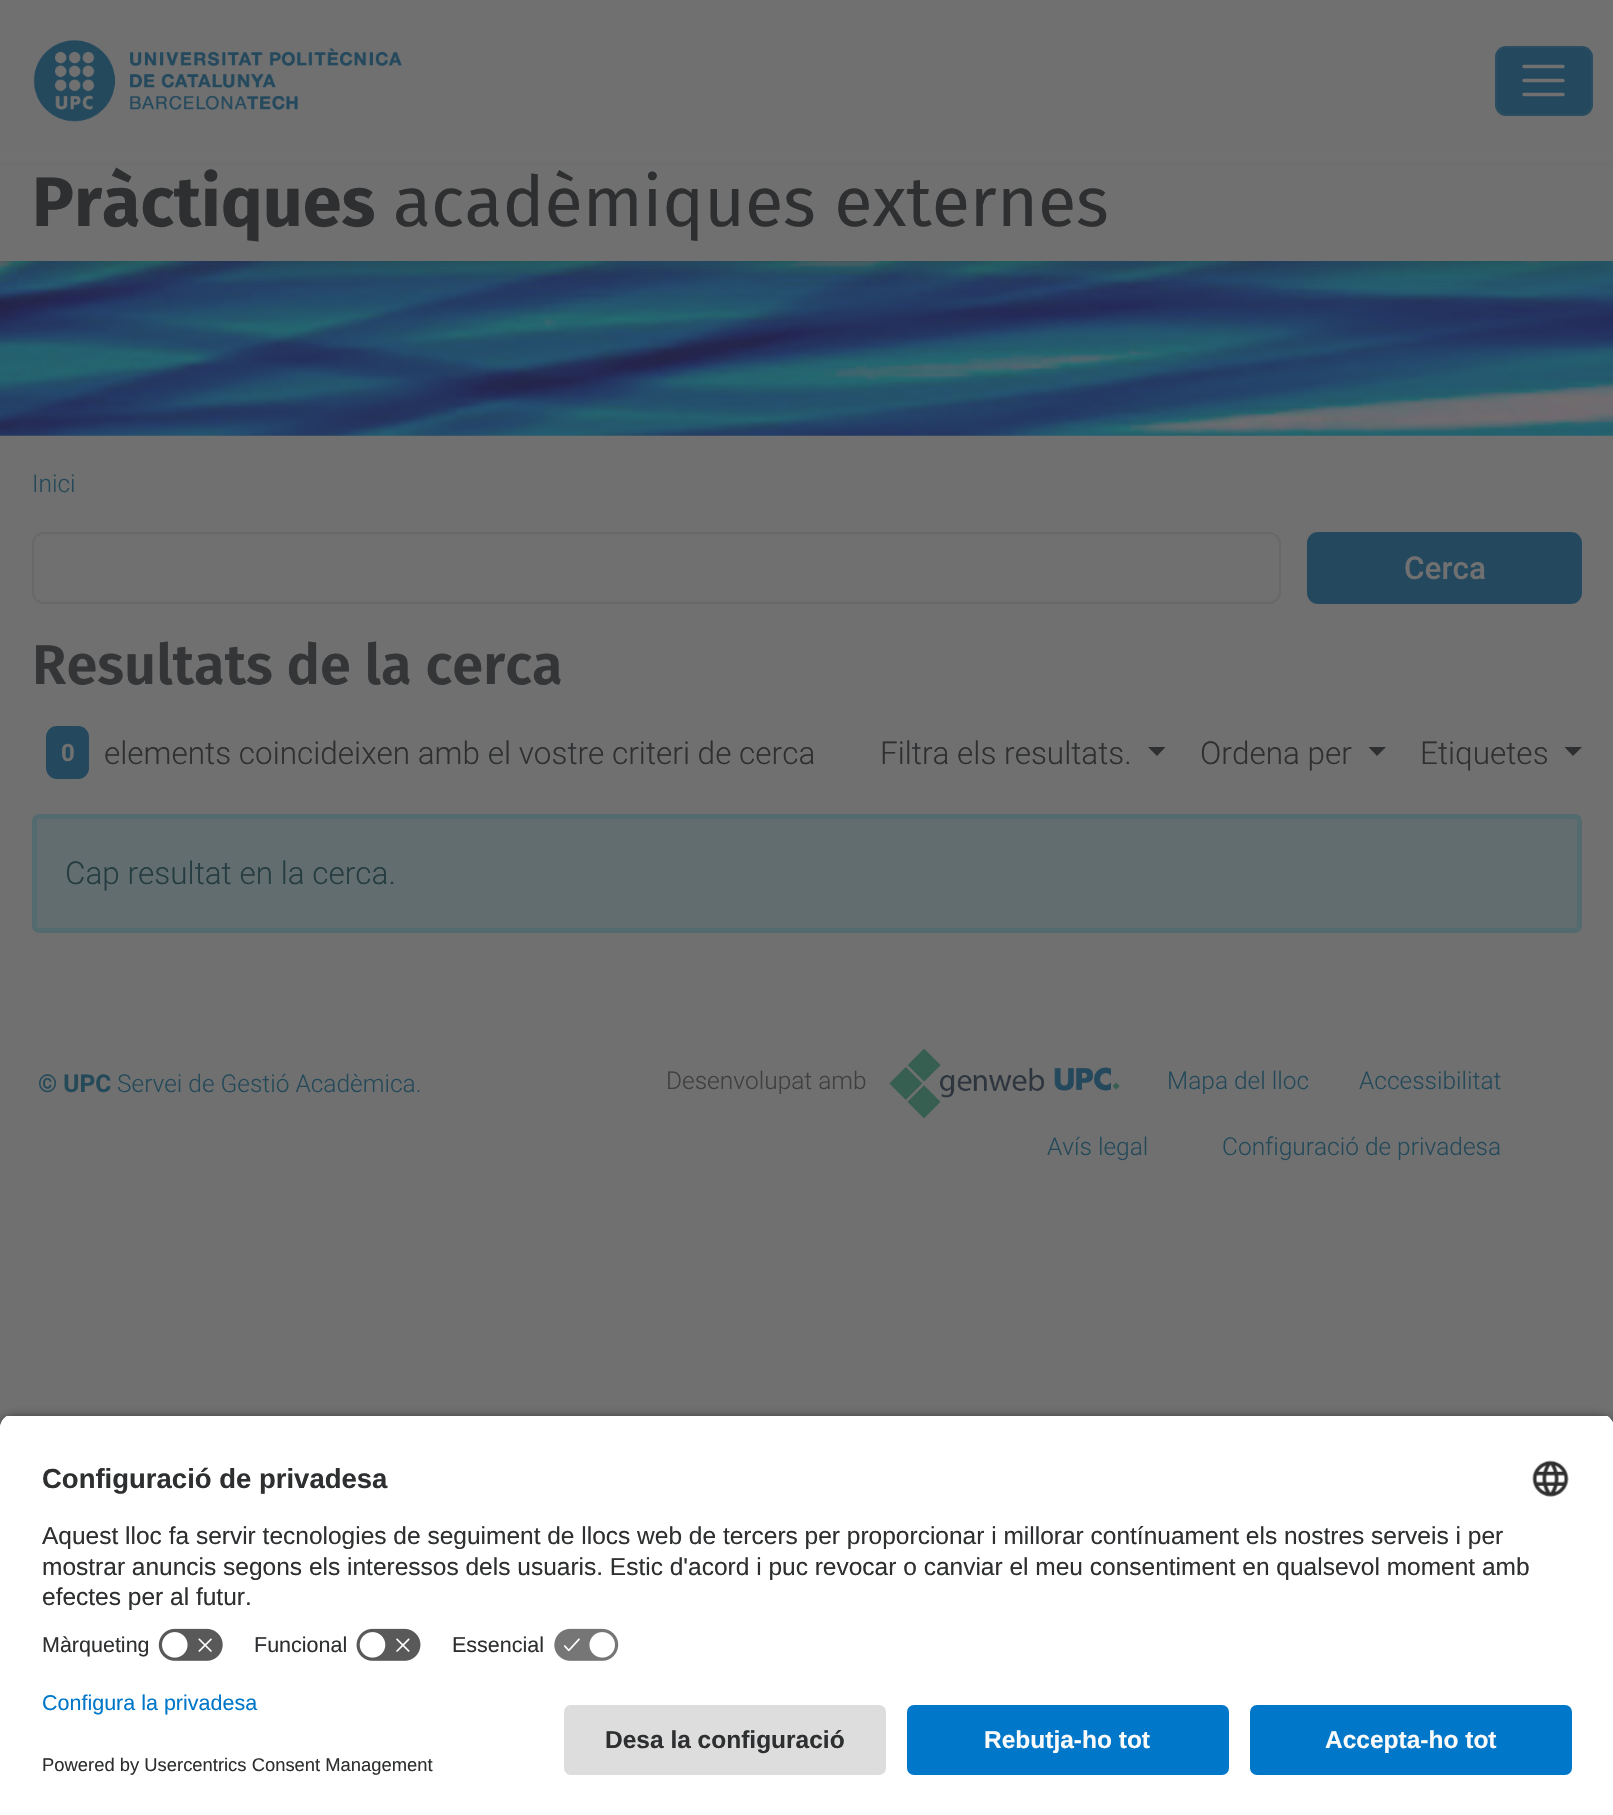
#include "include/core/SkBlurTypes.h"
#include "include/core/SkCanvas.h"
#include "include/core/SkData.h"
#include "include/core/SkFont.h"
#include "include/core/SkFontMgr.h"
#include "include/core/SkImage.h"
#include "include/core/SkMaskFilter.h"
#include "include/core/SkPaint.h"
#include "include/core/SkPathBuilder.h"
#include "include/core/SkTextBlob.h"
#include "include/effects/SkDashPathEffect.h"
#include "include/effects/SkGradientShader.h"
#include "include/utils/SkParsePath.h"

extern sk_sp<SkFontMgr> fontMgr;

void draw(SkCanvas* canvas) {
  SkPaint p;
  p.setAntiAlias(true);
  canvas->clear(SkColorSetRGB(112, 112, 112));
  canvas->drawImageRect(SkImages::DeferredFromEncodedData(SkData::MakeFromFileName("images/1.png")), SkRect::MakeLTRB(33, 40, 402, 122), SkSamplingOptions());
  p.setColor(SkColorSetRGB(36, 73, 94));
  canvas->drawRoundRect(SkRect::MakeLTRB(1495, 46, 1593, 116), 11, 11, p);
  p.setStyle(SkPaint::kStroke_Style);
  p.setStrokeWidth(2);
  p.setColor(SkColorSetARGB(26, 112, 112, 112));
  canvas->drawRoundRect(SkRect::MakeLTRB(1496, 47, 1592, 115), 10, 10, p);
  p.setStrokeWidth(3.5f);
  p.setStrokeCap(SkPaint::kRound_Cap);
  p.setColor(SkColorSetRGB(112, 112, 112));
  canvas->drawPath(SkPathBuilder().moveTo(1524, 66.5f).lineTo(1563, 66.5f).moveTo(1524, 80.5f).lineTo(1563, 80.5f).moveTo(1524, 94.5f).lineTo(1563, 94.5f).detach(), p);
  canvas->drawImageRect(SkImages::DeferredFromEncodedData(SkData::MakeFromFileName("images/2.png")), SkRect::MakeLTRB(0, 261, 1613, 436), SkSamplingOptions());
  p.setStyle(SkPaint::kFill_Style);
  p.setColor(SkColorSetARGB(51, 36, 36, 36));
  p.setMaskFilter(SkMaskFilter::MakeBlur(kNormal_SkBlurStyle, 7));
  canvas->drawRect(SkRect::MakeLTRB(0, 173, 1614, 273), p);
  p.setMaskFilter(nullptr);
  p.setColor(SkColorSetRGB(112, 112, 112));
  canvas->drawRect(SkRect::MakeLTRB(0, 166, 1613, 261), p);
  p.setStyle(SkPaint::kStroke_Style);
  p.setStrokeWidth(2);
  p.setStrokeCap(SkPaint::kButt_Cap);
  p.setColor(SkColorSetRGB(102, 104, 105));
  canvas->drawRoundRect(SkRect::MakeLTRB(33, 533, 1280, 603), 11, 11, p);
  p.setStyle(SkPaint::kFill_Style);
  p.setColor(SkColorSetRGB(36, 73, 94));
  canvas->drawRoundRect(SkRect::MakeLTRB(1308, 533, 1581, 603), 10, 10, p);
  p.setStyle(SkPaint::kStroke_Style);
  canvas->drawRoundRect(SkRect::MakeLTRB(1308, 533, 1581, 603), 10, 10, p);
  p.setStyle(SkPaint::kFill_Style);
  canvas->drawRoundRect(SkRect::MakeLTRB(46, 726, 89, 779), 11, 11, p);
  p.setColor(SkColorSetRGB(46, 47, 48));
  canvas->drawPath(SkPathBuilder().moveTo(1148, 747).lineTo(1165.5f, 747).lineTo(1157, 756).close().detach(), p);
  canvas->drawPath(SkPathBuilder().moveTo(1368.5f, 747).lineTo(1386, 747).lineTo(1377, 756).close().detach(), p);
  canvas->drawPath(SkPathBuilder().moveTo(1564.5f, 747).lineTo(1582, 747).lineTo(1573, 756).close().detach(), p);
  p.setColor(SkColorSetRGB(98, 109, 111));
  canvas->drawRoundRect(SkRect::MakeLTRB(34.5f, 816.5f, 1579.5f, 930.5f), 4.5f, 4.5f, p);
  p.setStyle(SkPaint::kStroke_Style);
  p.setStrokeWidth(5);
  p.setColor(SkColorSetRGB(83, 106, 110));
  canvas->drawRoundRect(SkRect::MakeLTRB(34.5f, 816.5f, 1579.5f, 930.5f), 4.5f, 4.5f, p);
  canvas->drawImageRect(SkImages::DeferredFromEncodedData(SkData::MakeFromFileName("images/3.png")), SkRect::MakeLTRB(889, 1048, 1120, 1119), SkSamplingOptions());
  p.setStyle(SkPaint::kFill_Style);
  p.setColor(SkColorSetARGB(204, 0, 0, 0));
  p.setMaskFilter(SkMaskFilter::MakeBlur(kNormal_SkBlurStyle, 6));
  canvas->drawRoundRect(SkRect::MakeLTRB(0, 1419, 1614, 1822), 14, 14, p);
  p.setMaskFilter(nullptr);
  canvas->save();
  canvas->clipPath(SkPathBuilder().moveTo(14, 1414).lineTo(1600, 1414).cubicTo(1607.5f, 1414, 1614, 1420.5f, 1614, 1428).lineTo(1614, 1691).lineTo(0, 1691).lineTo(0, 1428).cubicTo(0, 1420.5f, 6.5f, 1414, 14, 1414).close().detach(), true);
  p.setColor(SK_ColorWHITE);
  canvas->drawRect(SkRect::MakeLTRB(0, 1416, 1613, 1691), p);
  canvas->drawRect(SkRect::MakeLTRB(0, 1416, 1613, 1621), p);
  canvas->restore();
  canvas->drawImageRect(SkImages::DeferredFromEncodedData(SkData::MakeFromFileName("images/4.png")), SkRect::MakeLTRB(1532, 1460, 1569, 1497), SkSamplingOptions());
  canvas->drawImageRect(SkImages::DeferredFromEncodedData(SkData::MakeFromFileName("images/5.png")), SkRect::MakeLTRB(158, 1628, 223, 1661), SkSamplingOptions());
  canvas->drawImageRect(SkImages::DeferredFromEncodedData(SkData::MakeFromFileName("images/6.png")), SkRect::MakeLTRB(356, 1628, 421, 1661), SkSamplingOptions());
  canvas->drawImageRect(SkImages::DeferredFromEncodedData(SkData::MakeFromFileName("images/7.png")), SkRect::MakeLTRB(554, 1628, 619, 1661), SkSamplingOptions());
  canvas->drawRect(SkRect::MakeLTRB(0, 1691, 1613, 1815), p);
  p.setColor(SkColorSetRGB(221, 221, 221));
  canvas->drawRoundRect(SkRect::MakeLTRB(564, 1705, 886, 1775), 7, 7, p);
  p.setColor(SkColorSetRGB(0, 119, 200));
  canvas->drawRoundRect(SkRect::MakeLTRB(907, 1705, 1229, 1775), 7, 7, p);
  canvas->drawRoundRect(SkRect::MakeLTRB(1250, 1705, 1572, 1775), 7, 7, p);
  SkFont font1(fontMgr->matchFamilyStyle("Fira Sans", SkFontStyle::Bold()), 70);
  font1.setSubpixel(true);
  p.setColor(SkColorSetRGB(46, 47, 48));
  canvas->drawString("Pràctiques", 32, 226, font1, p);
  SkFont font2(fontMgr->matchFamilyStyle("Fira Sans", SkFontStyle::Normal()), 70);
  font2.setSubpixel(true);
  canvas->drawString("acadèmiques externes", 393, 226, font2, p);
  SkFont font3(fontMgr->matchFamilyStyle("Roboto", SkFontStyle(300, SkFontStyle::kNormal_Width, SkFontStyle::kUpright_Slant)), 24.5f);
  font3.setSubpixel(true);
  p.setColor(SkColorSetRGB(36, 73, 89));
  canvas->drawString("Inici", 32, 492, font3, p);
  SkFont font4(fontMgr->matchFamilyStyle("Roboto", SkFontStyle(500, SkFontStyle::kNormal_Width, SkFontStyle::kUpright_Slant)), 31.5f);
  font4.setSubpixel(true);
  p.setColor(SkColorSetRGB(112, 112, 112));
  canvas->drawString("Cerca", 1404, 579, font4, p);
  SkFont font5(fontMgr->matchFamilyStyle("Fira Sans", SkFontStyle(600, SkFontStyle::kNormal_Width, SkFontStyle::kUpright_Slant)), 56);
  font5.setSubpixel(true);
  p.setColor(SkColorSetRGB(51, 53, 55));
  canvas->drawString("Resultats de la cerca", 32, 684, font5, p);
  SkFont font6(fontMgr->matchFamilyStyle("Roboto", SkFontStyle::Bold()), 24);
  font6.setSubpixel(true);
  p.setColor(SkColorSetRGB(112, 112, 112));
  canvas->drawString("0", 61, 761, font6, p);
  SkFont font7(fontMgr->matchFamilyStyle("Roboto", SkFontStyle(300, SkFontStyle::kNormal_Width, SkFontStyle::kUpright_Slant)), 31.5f);
  font7.setSubpixel(true);
  p.setColor(SkColorSetRGB(46, 47, 48));
  canvas->drawString("elements coincideixen amb el vostre criteri de cerca", 104, 764, font7, p);
  canvas->drawString("Filtra els resultats.", 880, 764, font7, p);
  canvas->drawString("Ordena per", 1200, 764, font7, p);
  canvas->drawString("Etiquetes", 1420, 764, font7, p);
  p.setColor(SkColorSetRGB(37, 60, 65));
  canvas->drawString("Cap resultat en la cerca.", 65, 884, font7, p);
  SkFont font8(fontMgr->matchFamilyStyle("Roboto", SkFontStyle::Bold()), 24.5f);
  font8.setSubpixel(true);
  p.setColor(SkColorSetRGB(36, 73, 89));
  canvas->drawString("© UPC", 38, 1092, font8, p);
  canvas->drawString("Servei de Gestió Acadèmica.", 117, 1092, font3, p);
  p.setColor(SkColorSetRGB(62, 63, 64));
  canvas->drawString("Desenvolupat amb", 666, 1089, font3, p);
  p.setColor(SkColorSetRGB(36, 73, 89));
  canvas->drawString("Mapa del lloc", 1167, 1089, font3, p);
  canvas->drawString("Accessibilitat", 1359, 1089, font3, p);
  canvas->drawString("Avís legal", 1047, 1155, font3, p);
  canvas->drawString("Configuració de privadesa", 1222, 1155, font3, p);
  SkFont font9(fontMgr->matchFamilyStyle("Liberation Sans", SkFontStyle::Bold()), 27.5f);
  font9.setSubpixel(true);
  p.setColor(SkColorSetRGB(46, 47, 48));
  canvas->drawString("Configuració de privadesa", 42, 1488, font9, p);
  SkFont font10(fontMgr->matchFamilyStyle("Liberation Sans", SkFontStyle::Normal()), 24.5f);
  font10.setSubpixel(true);
  canvas->drawString("Aquest lloc fa servir tecnologies de seguiment de llocs web de tercers per proporcionar i millorar contínuament els nostres serveis i per", 42, 1544, font10, p);
  canvas->drawString("mostrar anuncis segons els interessos dels usuaris. Estic d'acord i puc revocar o canviar el meu consentiment en qualsevol moment amb", 42, 1575, font10, p);
  canvas->drawString("efectes per al futur.", 42, 1605, font10, p);
  SkFont font11(fontMgr->matchFamilyStyle("Liberation Sans", SkFontStyle::Normal()), 21.5f);
  font11.setSubpixel(true);
  canvas->drawString("Màrqueting", 42, 1652, font11, p);
  canvas->drawString("Funcional", 254, 1652, font11, p);
  canvas->drawString("Essencial", 452, 1652, font11, p);
  p.setColor(SkColorSetRGB(0, 119, 200));
  canvas->drawString("Configura la privadesa", 42, 1710, font11, p);
  SkFont font12(fontMgr->matchFamilyStyle("Liberation Sans", SkFontStyle::Normal()), 18.4f);
  font12.setSubpixel(true);
  p.setColor(SkColorSetRGB(46, 47, 48));
  canvas->drawString("Powered by Usercentrics Consent Management", 42, 1771, font12, p);
  SkFont font13(fontMgr->matchFamilyStyle("Liberation Sans", SkFontStyle::Bold()), 24.5f);
  font13.setSubpixel(true);
  canvas->drawString("Desa la configuració", 605, 1748, font13, p);
  p.setColor(SkColorSetRGB(250, 250, 250));
  canvas->drawString("Rebutja-ho tot", 984, 1748, font13, p);
  canvas->drawString("Accepta-ho tot", 1325, 1748, font13, p);
}
